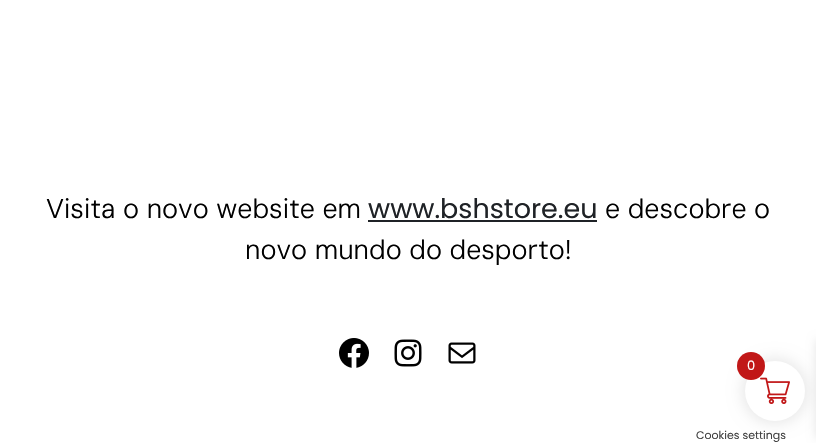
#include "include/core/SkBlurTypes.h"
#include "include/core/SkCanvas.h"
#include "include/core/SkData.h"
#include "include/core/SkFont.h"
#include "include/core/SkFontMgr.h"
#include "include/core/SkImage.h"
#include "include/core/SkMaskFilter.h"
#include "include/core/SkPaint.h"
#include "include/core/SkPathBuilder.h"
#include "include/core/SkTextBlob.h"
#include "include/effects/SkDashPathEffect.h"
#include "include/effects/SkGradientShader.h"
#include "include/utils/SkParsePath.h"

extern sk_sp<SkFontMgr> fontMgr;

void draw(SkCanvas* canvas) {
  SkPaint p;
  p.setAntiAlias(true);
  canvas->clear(SK_ColorWHITE);
  p.setColor(SkColorSetRGB(31, 34, 38));
  canvas->drawRect(SkRect::MakeLTRB(368, 220, 597, 222), p);
  canvas->drawImageRect(SkImages::DeferredFromEncodedData(SkData::MakeFromFileName("images/1.png")), SkRect::MakeLTRB(339, 338, 369, 368), SkSamplingOptions());
  canvas->drawImageRect(SkImages::DeferredFromEncodedData(SkData::MakeFromFileName("images/2.png")), SkRect::MakeLTRB(394, 339, 422, 367), SkSamplingOptions());
  canvas->drawImageRect(SkImages::DeferredFromEncodedData(SkData::MakeFromFileName("images/3.png")), SkRect::MakeLTRB(448, 342, 476, 364), SkSamplingOptions());
  p.setColor(SkColorSetARGB(26, 0, 0, 0));
  p.setMaskFilter(SkMaskFilter::MakeBlur(kNormal_SkBlurStyle, 7.5f));
  canvas->drawRoundRect(SkRect::MakeLTRB(743, 359, 807, 423), 32, 32, p);
  p.setMaskFilter(nullptr);
  p.setMaskFilter(SkMaskFilter::MakeBlur(kNormal_SkBlurStyle, 5));
  canvas->drawRect(SkRect::MakeLTRB(816, 340, 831, 438), p);
  p.setMaskFilter(nullptr);
  p.setColor(SK_ColorWHITE);
  canvas->drawCircle(775, 391, 30, p);
  canvas->drawImageRect(SkImages::DeferredFromEncodedData(SkData::MakeFromFileName("images/4.png")), SkRect::MakeLTRB(760, 377, 790, 404), SkSamplingOptions());
  p.setColor(SkColorSetRGB(193, 23, 23));
  canvas->drawCircle(751, 366, 14, p);
  SkFont font1(fontMgr->matchFamilyStyle("DM Sans", SkFontStyle(300, SkFontStyle::kNormal_Width, SkFontStyle::kUpright_Slant)), 27);
  font1.setSubpixel(true);
  p.setColor(SK_ColorBLACK);
  canvas->drawString("Visita o novo website em", 46, 218, font1, p);
  SkFont font2(fontMgr->matchFamilyStyle("Poppins", SkFontStyle::Normal()), 27);
  font2.setSubpixel(true);
  p.setColor(SkColorSetRGB(31, 34, 38));
  canvas->drawString("www.bshstore.eu", 368, 218, font2, p);
  p.setColor(SK_ColorBLACK);
  canvas->drawString("e descobre o", 605, 218, font1, p);
  canvas->drawString("novo mundo do desporto!", 245, 259, font1, p);
  SkFont font3(fontMgr->matchFamilyStyle("Poppins", SkFontStyle::Normal()), 13);
  font3.setSubpixel(true);
  p.setColor(SK_ColorWHITE);
  canvas->drawString("0", 747, 370, font3, p);
  SkFont font4(fontMgr->matchFamilyStyle("Poppins", SkFontStyle::Normal()), 11);
  font4.setSubpixel(true);
  p.setColor(SkColorSetRGB(64, 64, 64));
  canvas->drawString("Cookies settings", 696, 439, font4, p);
}
